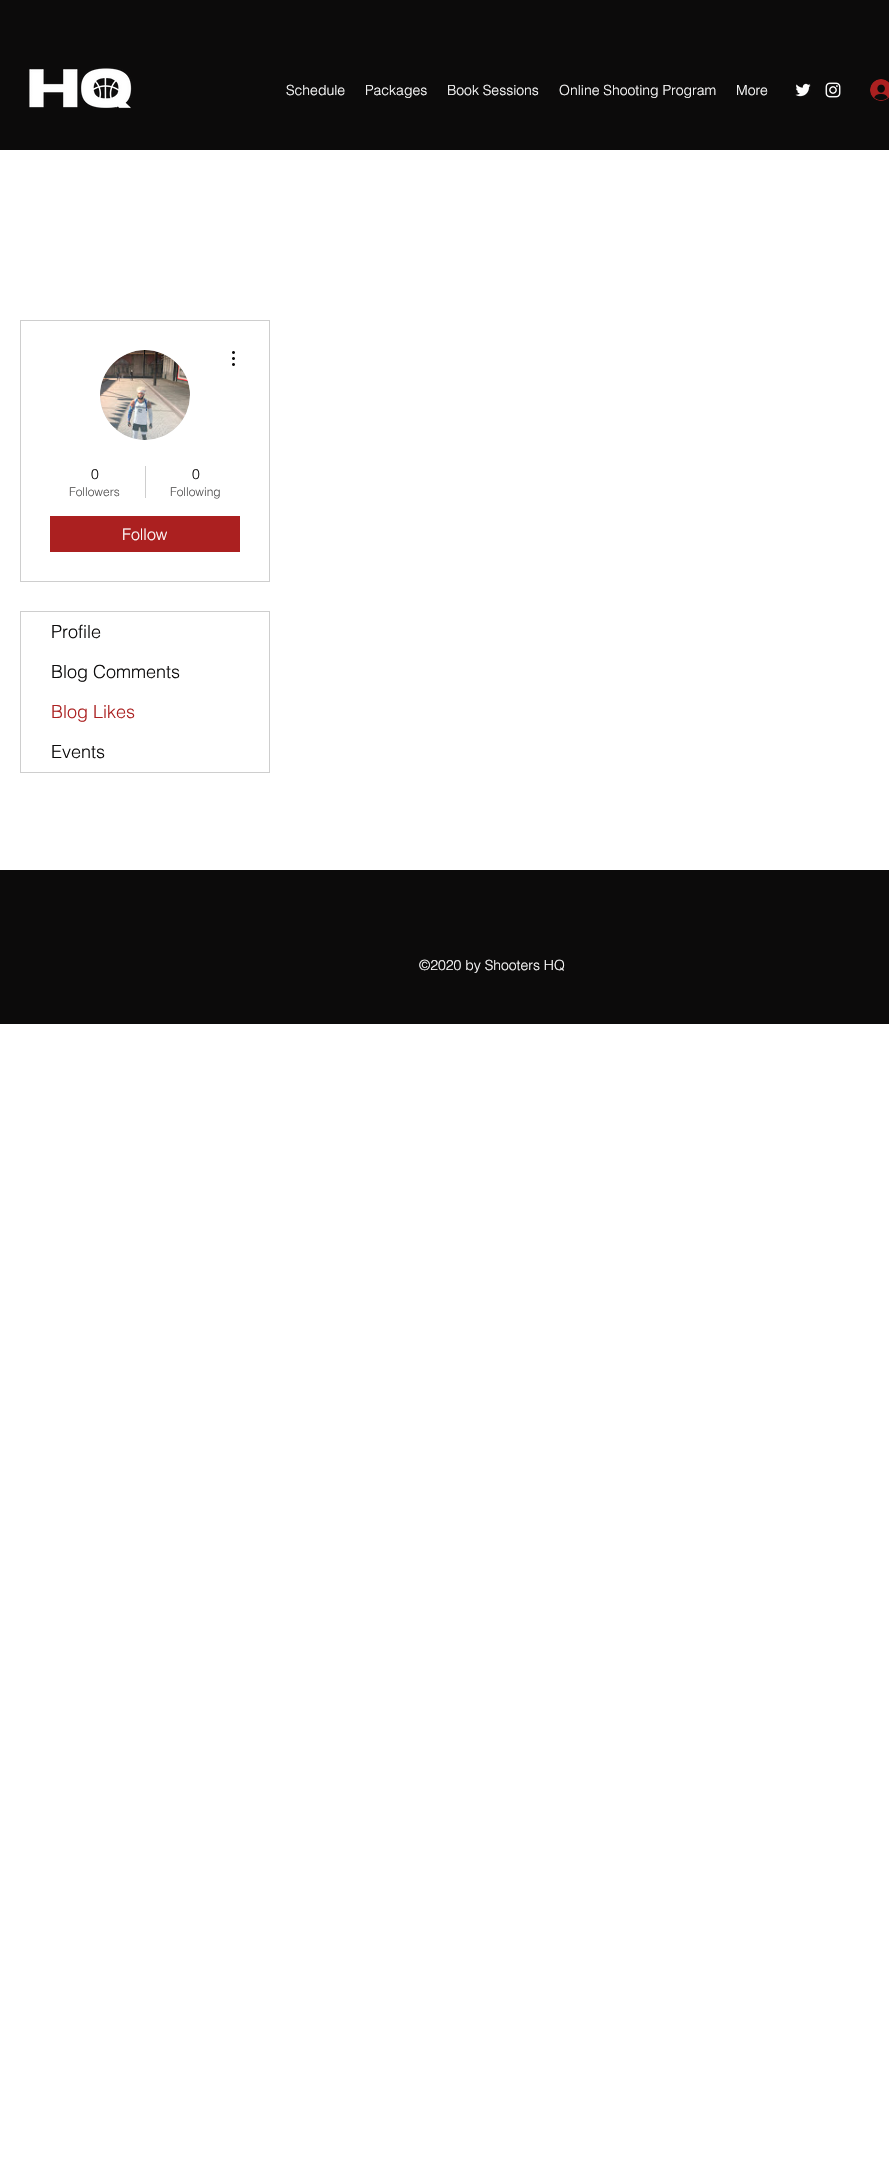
#include "include/core/SkBlurTypes.h"
#include "include/core/SkCanvas.h"
#include "include/core/SkData.h"
#include "include/core/SkFont.h"
#include "include/core/SkFontMgr.h"
#include "include/core/SkImage.h"
#include "include/core/SkMaskFilter.h"
#include "include/core/SkPaint.h"
#include "include/core/SkPathBuilder.h"
#include "include/core/SkTextBlob.h"
#include "include/effects/SkDashPathEffect.h"
#include "include/effects/SkGradientShader.h"
#include "include/utils/SkParsePath.h"

extern sk_sp<SkFontMgr> fontMgr;

void draw(SkCanvas* canvas) {
  SkPaint p;
  p.setAntiAlias(true);
  canvas->clear(SK_ColorWHITE);
  p.setColor(SkColorSetRGB(12, 11, 11));
  canvas->drawRect(SkRect::MakeLTRB(0, 0, 889, 150), p);
  canvas->drawImageRect(SkImages::DeferredFromEncodedData(SkData::MakeFromFileName("images/1.png")), SkRect::MakeLTRB(29, 68, 132, 109), SkSamplingOptions());
  canvas->drawImageRect(SkImages::DeferredFromEncodedData(SkData::MakeFromFileName("images/2.png")), SkRect::MakeLTRB(795, 83, 811, 97), SkSamplingOptions());
  canvas->drawImageRect(SkImages::DeferredFromEncodedData(SkData::MakeFromFileName("images/3.png")), SkRect::MakeLTRB(825, 82, 841, 98), SkSamplingOptions());
  canvas->drawImageRect(SkImages::DeferredFromEncodedData(SkData::MakeFromFileName("images/4.png")), SkRect::MakeLTRB(870, 79, 889, 101), SkSamplingOptions());
  p.setStyle(SkPaint::kStroke_Style);
  p.setStrokeWidth(1);
  p.setColor(SkColorSetRGB(206, 206, 206));
  canvas->drawRect(SkRect::MakeLTRB(20.5f, 320.5f, 269.5f, 581.5f), p);
  p.setStyle(SkPaint::kFill_Style);
  p.setColor(SkColorSetRGB(216, 216, 216));
  canvas->drawCircle(145, 395, 45, p);
  canvas->drawImageRect(SkImages::DeferredFromEncodedData(SkData::MakeFromFileName("images/5.png")), SkRect::MakeLTRB(100, 350, 190, 440), SkSamplingOptions());
  canvas->drawImageRect(SkImages::DeferredFromEncodedData(SkData::MakeFromFileName("images/6.png")), SkRect::MakeLTRB(232, 351, 235, 366), SkSamplingOptions());
  p.setColor(SkColorSetRGB(206, 206, 206));
  canvas->drawRect(SkRect::MakeLTRB(145, 466, 146, 498), p);
  p.setColor(SkColorSetRGB(171, 32, 32));
  canvas->drawRect(SkRect::MakeLTRB(50, 516, 240, 552), p);
  p.setStyle(SkPaint::kStroke_Style);
  p.setColor(SkColorSetRGB(206, 206, 206));
  canvas->drawRect(SkRect::MakeLTRB(20.5f, 611.5f, 269.5f, 772.5f), p);
  p.setStyle(SkPaint::kFill_Style);
  p.setColor(SkColorSetRGB(12, 11, 11));
  canvas->drawRect(SkRect::MakeLTRB(0, 870, 889, 1024), p);
  SkFont font1(fontMgr->matchFamilyStyle("helvetica", SkFontStyle(300, SkFontStyle::kNormal_Width, SkFontStyle::kUpright_Slant)), 14);
  font1.setSubpixel(true);
  p.setColor(SK_ColorWHITE);
  canvas->drawString("Schedule", 286, 95, font1, p);
  canvas->drawString("Packages", 365, 95, font1, p);
  canvas->drawString("Book Sessions", 447, 95, font1, p);
  canvas->drawString("Online Shooting Program", 559, 95, font1, p);
  canvas->drawString("More", 736, 95, font1, p);
  p.setColor(SkColorSetRGB(12, 11, 11));
  canvas->drawString("0", 91, 479, font1, p);
  SkFont font2(fontMgr->matchFamilyStyle("helvetica", SkFontStyle(300, SkFontStyle::kNormal_Width, SkFontStyle::kUpright_Slant)), 12);
  font2.setSubpixel(true);
  p.setColor(SkColorSetRGB(85, 84, 84));
  canvas->drawString("Followers", 69, 496, font2, p);
  p.setColor(SkColorSetRGB(12, 11, 11));
  canvas->drawString("0", 192, 479, font1, p);
  p.setColor(SkColorSetRGB(85, 84, 84));
  canvas->drawString("Following", 170, 496, font2, p);
  SkFont font3(fontMgr->matchFamilyStyle("helvetica", SkFontStyle(300, SkFontStyle::kNormal_Width, SkFontStyle::kUpright_Slant)), 16);
  font3.setSubpixel(true);
  p.setColor(SK_ColorWHITE);
  canvas->drawString("Follow", 122, 540, font3, p);
  SkFont font4(fontMgr->matchFamilyStyle("helvetica", SkFontStyle(300, SkFontStyle::kNormal_Width, SkFontStyle::kUpright_Slant)), 18);
  font4.setSubpixel(true);
  p.setColor(SkColorSetRGB(12, 11, 11));
  canvas->drawString("Profile", 51, 638, font4, p);
  canvas->drawString("Blog Comments", 51, 678, font4, p);
  p.setColor(SkColorSetRGB(171, 32, 32));
  canvas->drawString("Blog Likes", 51, 718, font4, p);
  p.setColor(SkColorSetRGB(12, 11, 11));
  canvas->drawString("Events", 51, 758, font4, p);
  p.setColor(SK_ColorWHITE);
  canvas->drawString("©2020 by Shooters HQ", 419, 970, font1, p);
}
